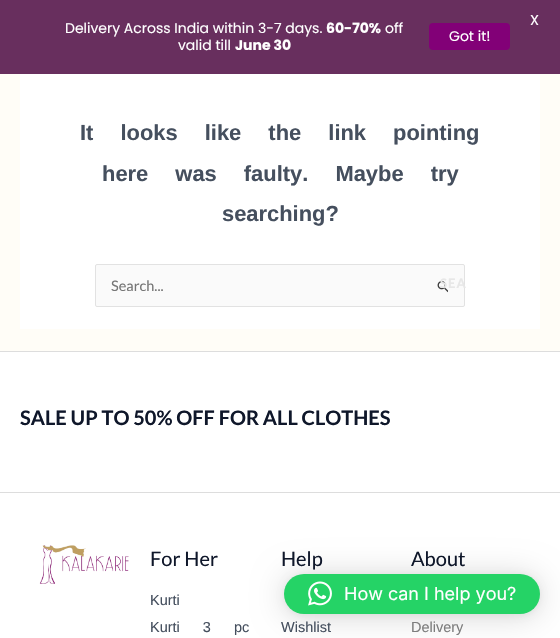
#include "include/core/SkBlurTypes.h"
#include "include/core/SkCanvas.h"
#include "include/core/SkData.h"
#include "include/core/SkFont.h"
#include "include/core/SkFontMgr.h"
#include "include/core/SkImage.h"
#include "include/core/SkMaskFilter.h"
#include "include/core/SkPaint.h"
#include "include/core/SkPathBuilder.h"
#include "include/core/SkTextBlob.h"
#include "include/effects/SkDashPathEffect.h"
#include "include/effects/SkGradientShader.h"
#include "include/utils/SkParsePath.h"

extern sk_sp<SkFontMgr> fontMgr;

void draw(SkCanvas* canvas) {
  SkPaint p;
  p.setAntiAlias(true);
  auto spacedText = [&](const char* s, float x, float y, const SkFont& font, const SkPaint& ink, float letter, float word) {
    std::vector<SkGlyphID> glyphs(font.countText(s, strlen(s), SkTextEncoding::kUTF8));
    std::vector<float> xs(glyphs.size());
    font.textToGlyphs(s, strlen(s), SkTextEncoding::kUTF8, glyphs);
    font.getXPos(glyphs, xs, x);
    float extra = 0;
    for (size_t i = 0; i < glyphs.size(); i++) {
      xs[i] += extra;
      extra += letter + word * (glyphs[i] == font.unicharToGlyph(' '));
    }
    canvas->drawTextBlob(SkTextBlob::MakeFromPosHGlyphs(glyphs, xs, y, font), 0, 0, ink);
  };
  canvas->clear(SkColorSetRGB(255, 253, 247));
  p.setColor(SkColorSetRGB(104, 47, 94));
  canvas->drawRect(SkRect::MakeLTRB(0, 0, 560, 74), p);
  p.setColor(SkColorSetRGB(130, 0, 119));
  canvas->drawRoundRect(SkRect::MakeLTRB(429, 23, 510, 50), 4, 4, p);
  p.setColor(SK_ColorWHITE);
  canvas->drawRect(SkRect::MakeLTRB(20, 74, 540, 329), p);
  p.setColor(SkColorSetRGB(250, 250, 250));
  canvas->drawRoundRect(SkRect::MakeLTRB(95.5f, 264.5f, 464.5f, 306.5f), 1.5f, 1.5f, p);
  p.setStyle(SkPaint::kStroke_Style);
  p.setStrokeWidth(1);
  p.setColor(SkColorSetRGB(226, 226, 226));
  canvas->drawRoundRect(SkRect::MakeLTRB(95.5f, 264.5f, 464.5f, 306.5f), 1.5f, 1.5f, p);
  canvas->drawImageRect(SkImages::DeferredFromEncodedData(SkData::MakeFromFileName("images/1.png")), SkRect::MakeLTRB(437, 281, 448, 293), SkSamplingOptions());
  p.setStyle(SkPaint::kFill_Style);
  p.setColor(SK_ColorWHITE);
  canvas->drawRect(SkRect::MakeLTRB(0, 352, 560, 638), p);
  p.setColor(SkColorSetRGB(221, 221, 221));
  canvas->drawRect(SkRect::MakeLTRB(0, 351, 560, 352), p);
  canvas->drawRect(SkRect::MakeLTRB(0, 492, 560, 493), p);
  canvas->drawImageRect(SkImages::DeferredFromEncodedData(SkData::MakeFromFileName("images/2.png")), SkRect::MakeLTRB(39, 545, 129, 584), SkSamplingOptions());
  p.setColor(SkColorSetARGB(41, 0, 0, 0));
  p.setMaskFilter(SkMaskFilter::MakeBlur(kNormal_SkBlurStyle, 16));
  canvas->drawRoundRect(SkRect::MakeLTRB(284, 576, 540, 616), 20, 20, p);
  p.setMaskFilter(nullptr);
  p.setColor(SkColorSetARGB(15, 0, 0, 0));
  p.setMaskFilter(SkMaskFilter::MakeBlur(kNormal_SkBlurStyle, 3));
  canvas->drawRoundRect(SkRect::MakeLTRB(284, 575, 540, 615), 20, 20, p);
  p.setMaskFilter(nullptr);
  p.setColor(SkColorSetRGB(37, 211, 102));
  canvas->drawRoundRect(SkRect::MakeLTRB(284, 574, 540, 614), 20, 20, p);
  canvas->drawImageRect(SkImages::DeferredFromEncodedData(SkData::MakeFromFileName("images/3.png")), SkRect::MakeLTRB(308, 581, 332, 606), SkSamplingOptions());
  SkFont font1(fontMgr->matchFamilyStyle("Poppins", SkFontStyle::Normal()), 14.5f);
  font1.setSubpixel(true);
  p.setColor(SK_ColorWHITE);
  canvas->drawString("X", 530, 25, font1, p);
  SkFont font2(fontMgr->matchFamilyStyle("Poppins", SkFontStyle::Normal()), 14);
  font2.setSubpixel(true);
  canvas->drawString("Delivery Across India within 3-7 days.", 65, 33, font2, p);
  SkFont font3(fontMgr->matchFamilyStyle("Poppins", SkFontStyle::Bold()), 14);
  font3.setSubpixel(true);
  canvas->drawString("60-70%", 326, 33, font3, p);
  canvas->drawString("off", 385, 33, font2, p);
  canvas->drawString("valid till", 178, 50, font2, p);
  canvas->drawString("June 30", 235, 50, font3, p);
  canvas->drawString("Got it!", 449, 41, font2, p);
  SkFont font4(fontMgr->matchFamilyStyle("Liberation Sans", SkFontStyle::Bold()), 21.9f);
  font4.setSubpixel(true);
  p.setColor(SkColorSetRGB(69, 79, 94));
  spacedText("It looks like the link pointing", 80, 140, font4, p, 0, 21);
  spacedText("here was faulty. Maybe try", 102, 181, font4, p, 0, 21);
  canvas->drawString("searching?", 222, 221, font4, p);
  SkFont font5(fontMgr->matchFamilyStyle("Lato", SkFontStyle::Normal()), 14.5f);
  font5.setSubpixel(true);
  p.setColor(SkColorSetRGB(117, 117, 117));
  canvas->drawString("Search...", 111, 291, font5, p);
  SkFont font6(fontMgr->matchFamilyStyle("Lato", SkFontStyle::Bold()), 13);
  font6.setSubpixel(true);
  p.setColor(SkColorSetRGB(231, 231, 231));
  spacedText("SEA", 440, 288, font6, p, 1, 0);
  SkFont font7(fontMgr->matchFamilyStyle("Lato", SkFontStyle::Bold()), 20);
  font7.setSubpixel(true);
  p.setColor(SkColorSetRGB(15, 23, 42));
  canvas->drawString("SALE UP TO 50% OFF FOR ALL CLOTHES", 20, 425, font7, p);
  SkFont font8(fontMgr->matchFamilyStyle("Lato", SkFontStyle::Normal()), 20);
  font8.setSubpixel(true);
  canvas->drawString("For Her", 150, 566, font8, p);
  SkFont font9(fontMgr->matchFamilyStyle("Liberation Sans", SkFontStyle::Normal()), 14.5f);
  font9.setSubpixel(true);
  p.setColor(SkColorSetRGB(69, 79, 94));
  canvas->drawString("Kurti", 150, 605, font9, p);
  spacedText("Kurti 3 pc", 150, 632, font9, p, 0, 19);
  p.setColor(SkColorSetRGB(15, 23, 42));
  canvas->drawString("Help", 281, 566, font8, p);
  p.setColor(SkColorSetRGB(69, 79, 94));
  canvas->drawString("Wishlist", 281, 632, font9, p);
  p.setColor(SkColorSetRGB(15, 23, 42));
  canvas->drawString("About", 411, 566, font8, p);
  p.setColor(SkColorSetRGB(125, 125, 125));
  canvas->drawString("Delivery", 411, 632, font9, p);
  SkFont font10(fontMgr->matchFamilyStyle("Inter", SkFontStyle::Normal()), 18);
  font10.setSubpixel(true);
  p.setColor(SK_ColorWHITE);
  canvas->drawString("How can I help you?", 344, 600, font10, p);
}
